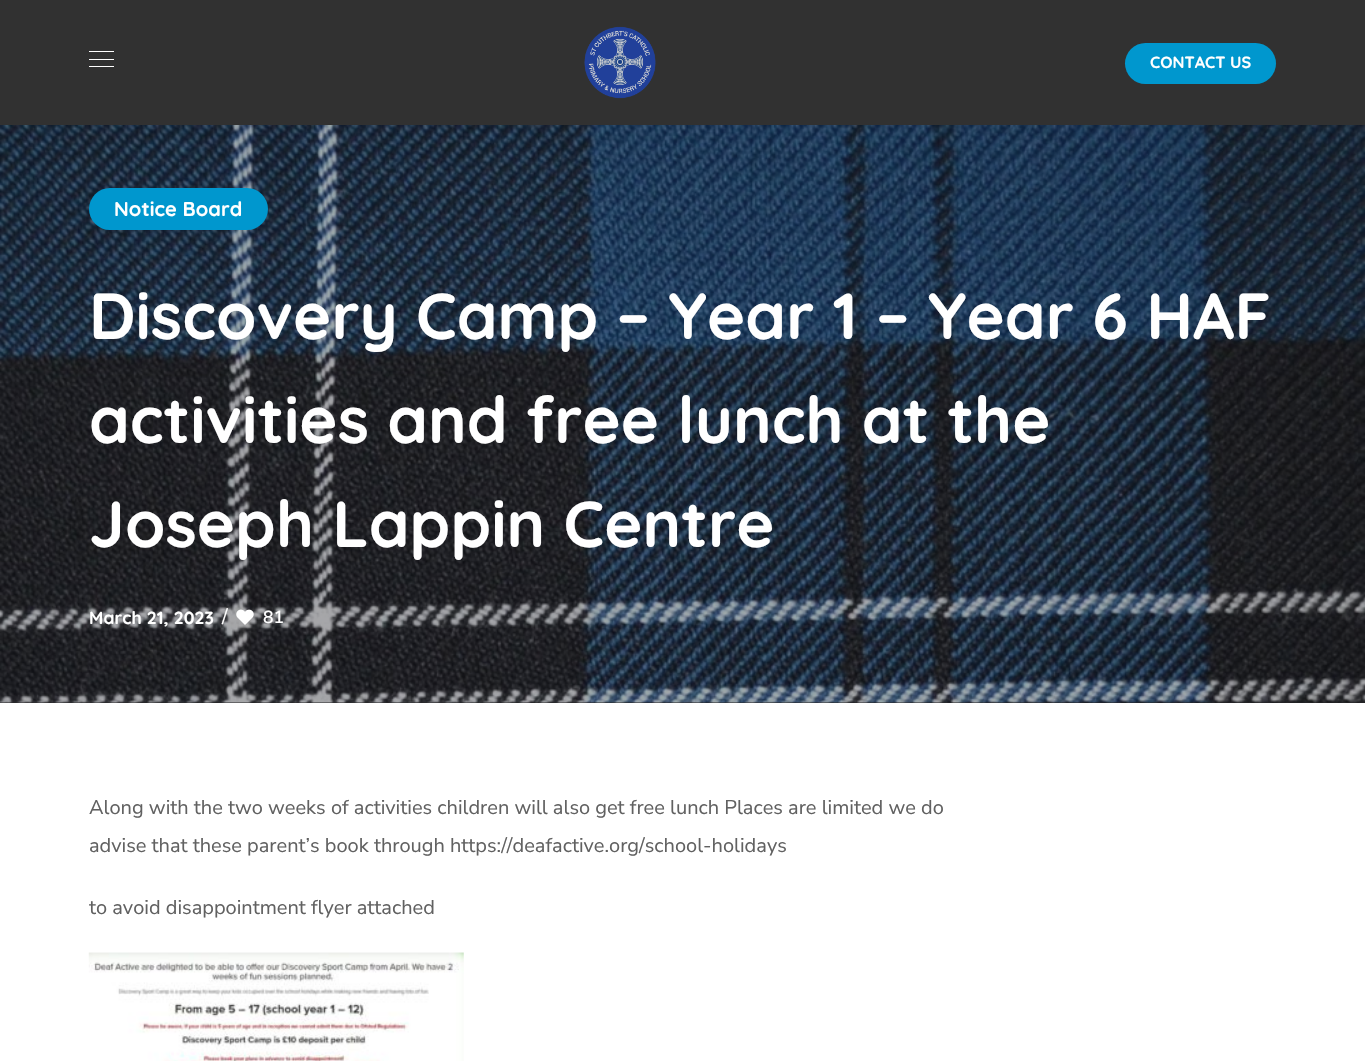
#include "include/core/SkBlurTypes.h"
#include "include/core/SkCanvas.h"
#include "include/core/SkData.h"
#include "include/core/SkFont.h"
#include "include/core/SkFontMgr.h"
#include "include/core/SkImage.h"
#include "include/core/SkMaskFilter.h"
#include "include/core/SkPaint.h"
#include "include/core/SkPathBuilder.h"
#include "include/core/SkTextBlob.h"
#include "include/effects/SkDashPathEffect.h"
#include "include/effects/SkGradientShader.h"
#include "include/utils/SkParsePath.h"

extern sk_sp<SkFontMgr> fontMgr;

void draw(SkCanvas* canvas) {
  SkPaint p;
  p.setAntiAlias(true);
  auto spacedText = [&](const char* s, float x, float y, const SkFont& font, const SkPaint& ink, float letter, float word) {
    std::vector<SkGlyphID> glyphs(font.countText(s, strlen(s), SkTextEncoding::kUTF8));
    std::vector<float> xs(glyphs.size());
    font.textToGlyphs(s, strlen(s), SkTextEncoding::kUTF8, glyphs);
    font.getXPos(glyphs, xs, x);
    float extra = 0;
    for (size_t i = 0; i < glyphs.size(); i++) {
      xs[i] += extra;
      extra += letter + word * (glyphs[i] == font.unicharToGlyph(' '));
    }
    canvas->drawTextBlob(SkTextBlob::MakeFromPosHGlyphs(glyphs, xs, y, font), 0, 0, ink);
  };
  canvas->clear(SK_ColorWHITE);
  p.setColor(SkColorSetRGB(49, 49, 49));
  canvas->drawRect(SkRect::MakeLTRB(0, 0, 1365, 125), p);
  p.setColor(SK_ColorWHITE);
  canvas->drawRect(SkRect::MakeLTRB(89, 51, 114, 52), p);
  canvas->drawRect(SkRect::MakeLTRB(89, 59, 114, 60), p);
  canvas->drawRect(SkRect::MakeLTRB(89, 66, 114, 67), p);
  canvas->drawImageRect(SkImages::DeferredFromEncodedData(SkData::MakeFromFileName("images/1.png")), SkRect::MakeLTRB(584, 26, 656, 99), SkSamplingOptions());
  p.setColor(SkColorSetRGB(0, 151, 206));
  canvas->drawRoundRect(SkRect::MakeLTRB(1125, 43, 1276, 84), 20.5f, 20.5f, p);
  p.setColor(SkColorSetRGB(35, 35, 37));
  canvas->drawRect(SkRect::MakeLTRB(0, 702, 1365, 703), p);
  canvas->drawImageRect(SkImages::DeferredFromEncodedData(SkData::MakeFromFileName("images/2.png")), SkRect::MakeLTRB(0, 125, 1365, 703), SkSamplingOptions());
  p.setColor(SkColorSetRGB(0, 151, 206));
  canvas->drawRoundRect(SkRect::MakeLTRB(89, 188, 268, 230), 21, 21, p);
  canvas->drawImageRect(SkImages::DeferredFromEncodedData(SkData::MakeFromFileName("images/3.png")), SkRect::MakeLTRB(236, 609, 254, 625), SkSamplingOptions());
  canvas->drawImageRect(SkImages::DeferredFromEncodedData(SkData::MakeFromFileName("images/4.png")), SkRect::MakeLTRB(88, 952, 464, 1061), SkSamplingOptions());
  SkFont font1(fontMgr->matchFamilyStyle("Quicksand", SkFontStyle::Bold()), 16.25f);
  font1.setSubpixel(true);
  p.setColor(SK_ColorWHITE);
  canvas->drawString("CONTACT US", 1150, 68, font1, p);
  SkFont font2(fontMgr->matchFamilyStyle("Quicksand", SkFontStyle::Bold()), 20);
  font2.setSubpixel(true);
  spacedText("Notice Board", 114, 216, font2, p, 0.1f, 0);
  SkFont font3(fontMgr->matchFamilyStyle("Quicksand", SkFontStyle::Bold()), 65);
  font3.setSubpixel(true);
  canvas->drawString("Discovery Camp – Year 1 – Year 6 HAF", 89, 339, font3, p);
  canvas->drawString("activities and free lunch at the", 89, 443, font3, p);
  canvas->drawString("Joseph Lappin Centre", 89, 547, font3, p);
  SkFont font4(fontMgr->matchFamilyStyle("Quicksand", SkFontStyle::Bold()), 17.5f);
  font4.setSubpixel(true);
  spacedText("March 21, 2023", 89, 624, font4, p, 0.1f, 0);
  SkFont font5(fontMgr->matchFamilyStyle("Nunito Sans", SkFontStyle::Normal()), 20);
  font5.setSubpixel(true);
  canvas->drawString("/", 222, 623, font5, p);
  SkFont font6(fontMgr->matchFamilyStyle("Nunito Sans", SkFontStyle(600, SkFontStyle::kNormal_Width, SkFontStyle::kUpright_Slant)), 17.5f);
  font6.setSubpixel(true);
  canvas->drawString("81", 263, 623, font6, p);
  p.setColor(SkColorSetRGB(97, 97, 97));
  canvas->drawString("Along with the two weeks of activities children will also get free lunch Places are limited we do", 89, 814, font5, p);
  canvas->drawString("advise that these parent’s book through https://deafactive.org/school-holidays", 89, 852, font5, p);
  canvas->drawString("to avoid disappointment flyer attached", 89, 914, font5, p);
}
